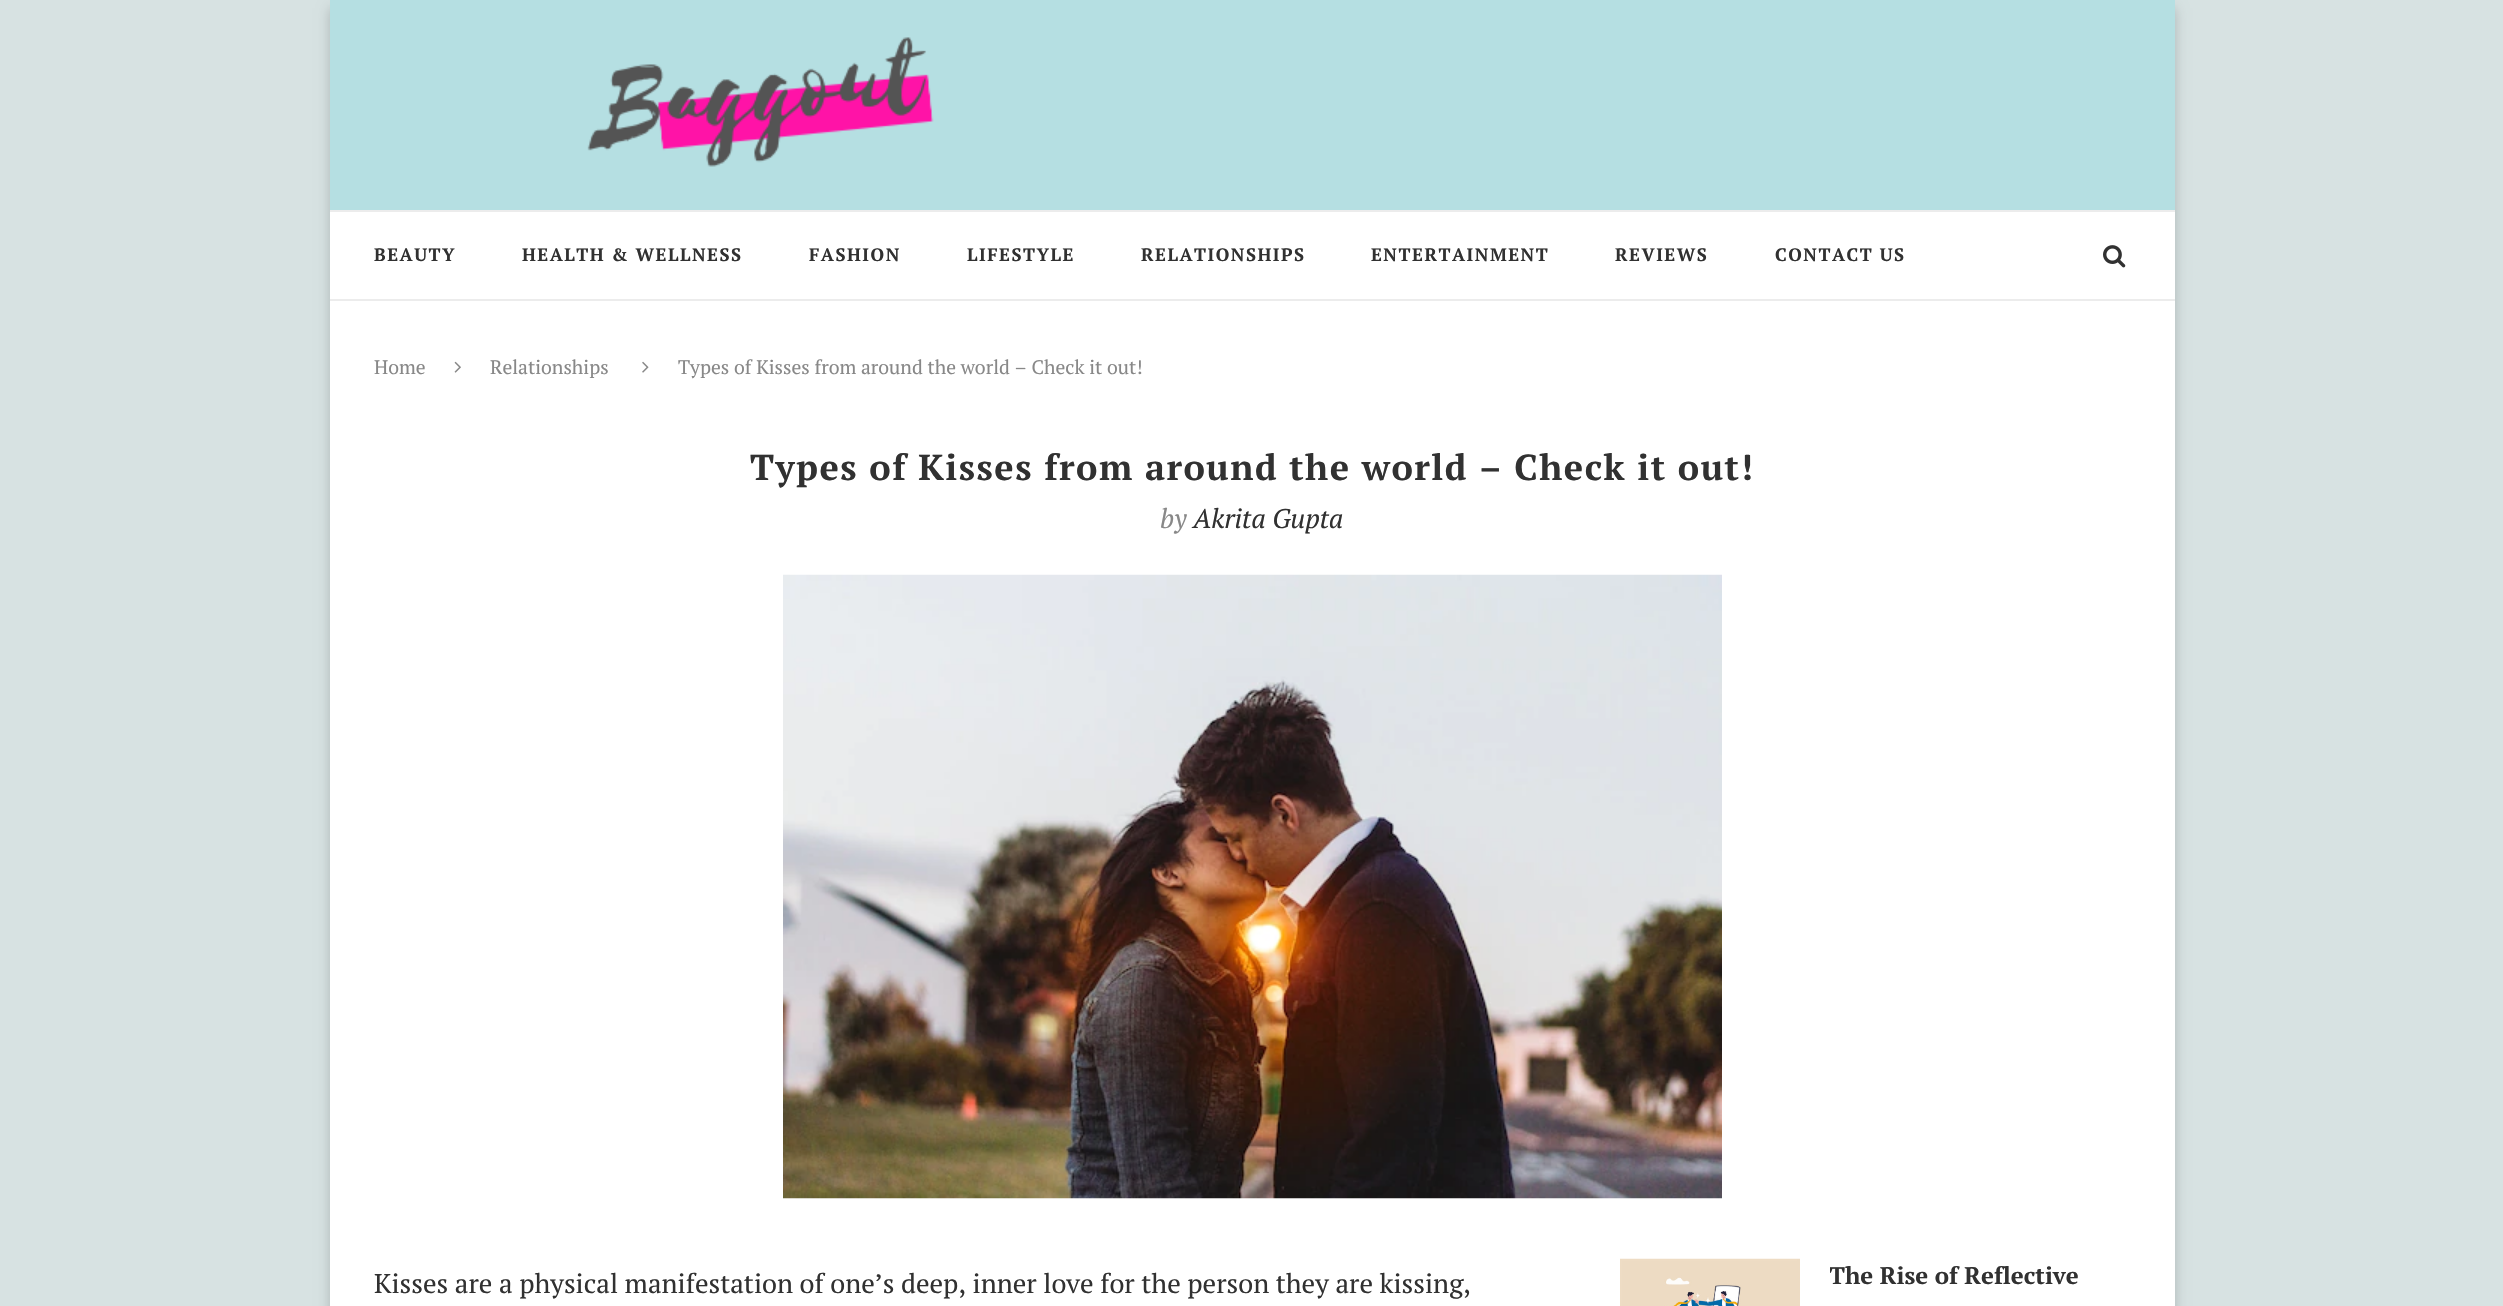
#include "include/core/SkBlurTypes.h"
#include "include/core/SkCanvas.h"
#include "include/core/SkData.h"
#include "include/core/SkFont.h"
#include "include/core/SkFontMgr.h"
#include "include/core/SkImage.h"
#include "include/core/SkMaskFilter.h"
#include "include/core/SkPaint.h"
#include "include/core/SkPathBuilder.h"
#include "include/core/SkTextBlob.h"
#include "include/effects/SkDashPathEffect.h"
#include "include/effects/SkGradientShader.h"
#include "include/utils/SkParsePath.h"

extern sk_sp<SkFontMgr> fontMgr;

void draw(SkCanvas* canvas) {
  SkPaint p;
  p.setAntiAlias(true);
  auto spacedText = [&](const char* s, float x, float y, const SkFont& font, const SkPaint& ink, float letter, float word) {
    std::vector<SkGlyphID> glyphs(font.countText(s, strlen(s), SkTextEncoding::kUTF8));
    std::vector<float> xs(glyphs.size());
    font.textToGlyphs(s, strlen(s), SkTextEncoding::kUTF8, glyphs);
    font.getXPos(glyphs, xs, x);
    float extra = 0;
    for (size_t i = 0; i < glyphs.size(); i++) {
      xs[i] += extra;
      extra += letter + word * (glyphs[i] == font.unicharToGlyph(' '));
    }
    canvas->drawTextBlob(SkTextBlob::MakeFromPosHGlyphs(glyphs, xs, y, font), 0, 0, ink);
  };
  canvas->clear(SkColorSetRGB(215, 226, 226));
  p.setColor(SkColorSetARGB(51, 0, 0, 0));
  p.setMaskFilter(SkMaskFilter::MakeBlur(kNormal_SkBlurStyle, 6));
  canvas->drawRect(SkRect::MakeLTRB(330, 8, 2175, 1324), p);
  p.setMaskFilter(nullptr);
  p.setColor(SK_ColorWHITE);
  canvas->drawRect(SkRect::MakeLTRB(330, 212, 2175, 1306), p);
  p.setColor(SkColorSetRGB(181, 223, 226));
  canvas->drawRect(SkRect::MakeLTRB(330, 0, 2175, 210), p);
  canvas->drawImageRect(SkImages::DeferredFromEncodedData(SkData::MakeFromFileName("images/1.png")), SkRect::MakeLTRB(587, 37, 934, 167), SkSamplingOptions());
  p.setColor(SkColorSetRGB(236, 236, 236));
  canvas->drawRect(SkRect::MakeLTRB(330, 210, 2175, 212), p);
  canvas->drawRect(SkRect::MakeLTRB(330, 299, 2175, 301), p);
  canvas->drawImageRect(SkImages::DeferredFromEncodedData(SkData::MakeFromFileName("images/2.png")), SkRect::MakeLTRB(2103, 245, 2126, 268), SkSamplingOptions());
  canvas->drawImageRect(SkImages::DeferredFromEncodedData(SkData::MakeFromFileName("images/3.png")), SkRect::MakeLTRB(454, 361, 461, 373), SkSamplingOptions());
  canvas->drawImageRect(SkImages::DeferredFromEncodedData(SkData::MakeFromFileName("images/4.png")), SkRect::MakeLTRB(642, 361, 649, 373), SkSamplingOptions());
  canvas->drawImageRect(SkImages::DeferredFromEncodedData(SkData::MakeFromFileName("images/5.png")), SkRect::MakeLTRB(783, 574, 1722, 1199), SkSamplingOptions());
  canvas->drawImageRect(SkImages::DeferredFromEncodedData(SkData::MakeFromFileName("images/6.png")), SkRect::MakeLTRB(1620, 1258, 1800, 1306), SkSamplingOptions());
  SkFont font1(fontMgr->matchFamilyStyle("PT Serif", SkFontStyle::Bold()), 18);
  font1.setSubpixel(true);
  p.setColor(SkColorSetRGB(49, 49, 49));
  spacedText("BEAUTY", 374, 261, font1, p, 1.5f, 0);
  spacedText("HEALTH & WELLNESS", 522, 261, font1, p, 1.5f, 0);
  spacedText("FASHION", 809, 261, font1, p, 1.5f, 0);
  spacedText("LIFESTYLE", 967, 261, font1, p, 1.5f, 0);
  spacedText("RELATIONSHIPS", 1141, 261, font1, p, 1.5f, 0);
  spacedText("ENTERTAINMENT", 1371, 261, font1, p, 1.5f, 0);
  spacedText("REVIEWS", 1615, 261, font1, p, 1.5f, 0);
  spacedText("CONTACT US", 1775, 261, font1, p, 1.5f, 0);
  SkFont font2(fontMgr->matchFamilyStyle("PT Serif", SkFontStyle::Normal()), 19.5f);
  font2.setSubpixel(true);
  p.setColor(SkColorSetRGB(136, 136, 136));
  canvas->drawString("Home", 374, 374, font2, p);
  canvas->drawString("Relationships", 490, 374, font2, p);
  canvas->drawString("Types of Kisses from around the world – Check it out!", 678, 374, font2, p);
  SkFont font3(fontMgr->matchFamilyStyle("PT Serif", SkFontStyle::Bold()), 36);
  font3.setSubpixel(true);
  p.setColor(SkColorSetRGB(49, 49, 49));
  spacedText("Types of Kisses from around the world – Check it out!", 750, 480, font3, p, 1.5f, 0);
  SkFont font4(fontMgr->matchFamilyStyle("PT Serif", SkFontStyle::Italic()), 27);
  font4.setSubpixel(true);
  p.setColor(SkColorSetRGB(136, 136, 136));
  canvas->drawString("by", 1160, 528, font4, p);
  p.setColor(SkColorSetRGB(49, 49, 49));
  canvas->drawString("Akrita Gupta", 1193, 528, font4, p);
  SkFont font5(fontMgr->matchFamilyStyle("PT Serif", SkFontStyle::Normal()), 27);
  font5.setSubpixel(true);
  canvas->drawString("Kisses are a physical manifestation of one’s deep, inner love for the person they are kissing,", 374, 1293, font5, p);
  canvas->save();
  canvas->clipRect(SkRect::MakeLTRB(1830, 1259, 2130, 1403));
  SkFont font6(fontMgr->matchFamilyStyle("PT Serif", SkFontStyle::Bold()), 24);
  font6.setSubpixel(true);
  canvas->drawString("The Rise of Reflective", 1829, 1284, font6, p);
  canvas->restore();
}
